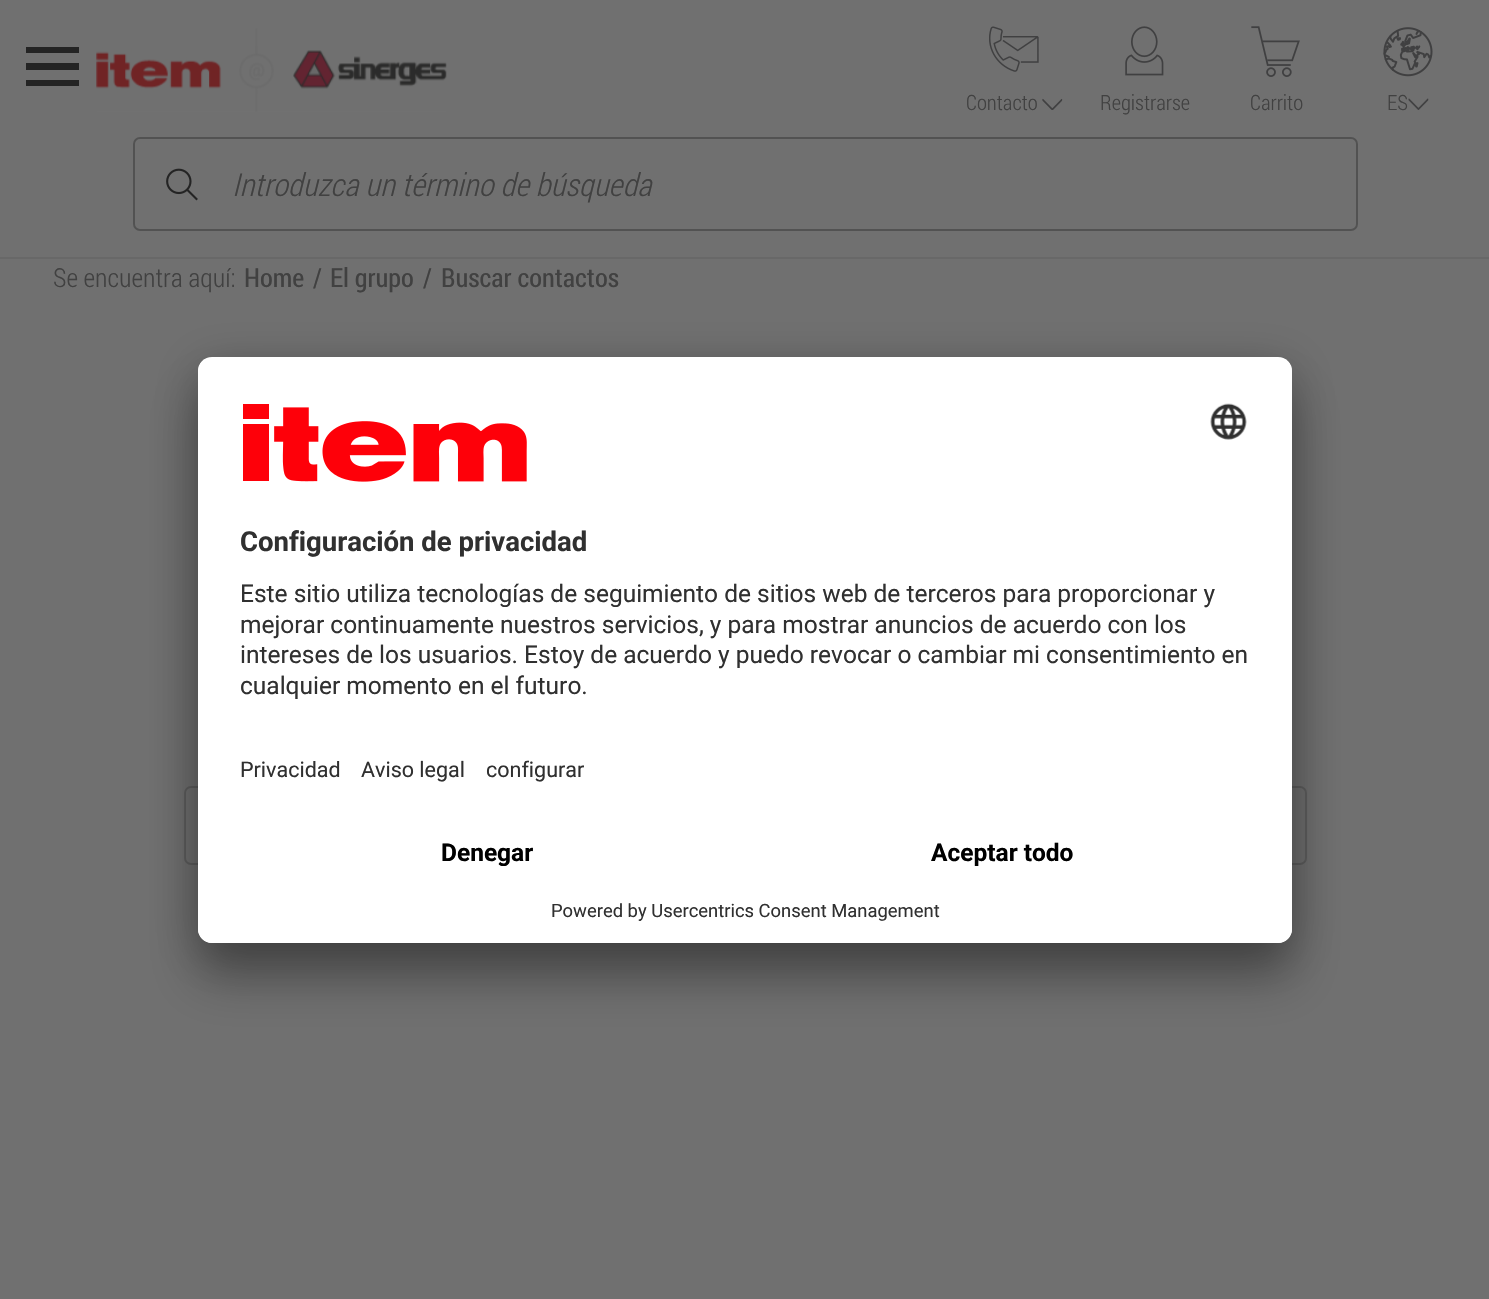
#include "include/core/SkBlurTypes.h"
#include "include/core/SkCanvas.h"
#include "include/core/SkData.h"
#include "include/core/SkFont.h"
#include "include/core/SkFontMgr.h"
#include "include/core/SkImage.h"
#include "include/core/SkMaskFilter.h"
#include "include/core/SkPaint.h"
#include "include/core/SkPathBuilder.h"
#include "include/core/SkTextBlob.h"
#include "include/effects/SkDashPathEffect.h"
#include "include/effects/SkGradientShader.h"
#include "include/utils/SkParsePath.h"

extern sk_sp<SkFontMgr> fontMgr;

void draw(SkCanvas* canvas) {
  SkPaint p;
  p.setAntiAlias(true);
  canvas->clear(SkColorSetRGB(112, 112, 112));
  p.setColor(SkColorSetRGB(104, 104, 104));
  canvas->drawRect(SkRect::MakeLTRB(0, 257, 1489, 259), p);
  p.setColor(SkColorSetRGB(36, 36, 36));
  canvas->drawPath(SkPathBuilder().moveTo(26, 47).lineTo(79, 47).lineTo(79, 53).lineTo(26, 53).close().moveTo(26, 63).lineTo(79, 63).lineTo(79, 70).lineTo(26, 70).close().moveTo(26, 80).lineTo(79, 80).lineTo(79, 86).lineTo(26, 86).close().detach(), p);
  canvas->drawImageRect(SkImages::DeferredFromEncodedData(SkData::MakeFromFileName("images/1.png")), SkRect::MakeLTRB(96, 28, 447, 112), SkSamplingOptions());
  canvas->drawImageRect(SkImages::DeferredFromEncodedData(SkData::MakeFromFileName("images/2.png")), SkRect::MakeLTRB(989, 26, 1039, 72), SkSamplingOptions());
  canvas->drawImageRect(SkImages::DeferredFromEncodedData(SkData::MakeFromFileName("images/3.png")), SkRect::MakeLTRB(1042, 98, 1063, 110), SkSamplingOptions());
  canvas->drawImageRect(SkImages::DeferredFromEncodedData(SkData::MakeFromFileName("images/4.png")), SkRect::MakeLTRB(1125, 26, 1164, 76), SkSamplingOptions());
  canvas->drawImageRect(SkImages::DeferredFromEncodedData(SkData::MakeFromFileName("images/5.png")), SkRect::MakeLTRB(1251, 26, 1300, 77), SkSamplingOptions());
  canvas->drawImageRect(SkImages::DeferredFromEncodedData(SkData::MakeFromFileName("images/6.png")), SkRect::MakeLTRB(1383, 27, 1433, 77), SkSamplingOptions());
  canvas->drawImageRect(SkImages::DeferredFromEncodedData(SkData::MakeFromFileName("images/7.png")), SkRect::MakeLTRB(1408, 98, 1429, 110), SkSamplingOptions());
  p.setStyle(SkPaint::kStroke_Style);
  p.setStrokeWidth(2);
  p.setColor(SkColorSetRGB(82, 82, 82));
  canvas->drawRoundRect(SkRect::MakeLTRB(134, 138, 1357, 230), 6, 6, p);
  canvas->drawImageRect(SkImages::DeferredFromEncodedData(SkData::MakeFromFileName("images/8.png")), SkRect::MakeLTRB(166, 168, 198, 201), SkSamplingOptions());
  p.setColor(SkColorSetRGB(94, 94, 94));
  canvas->drawRoundRect(SkRect::MakeLTRB(185, 787, 356, 864), 6, 6, p);
  canvas->drawRoundRect(SkRect::MakeLTRB(1107, 787, 1306, 864), 6, 6, p);
  p.setStyle(SkPaint::kFill_Style);
  p.setColor(SkColorSetARGB(77, 0, 0, 0));
  p.setMaskFilter(SkMaskFilter::MakeBlur(kNormal_SkBlurStyle, 24.5f));
  canvas->drawRoundRect(SkRect::MakeLTRB(198, 392, 1292, 978), 14, 14, p);
  p.setMaskFilter(nullptr);
  p.setColor(SkColorSetARGB(56, 0, 0, 0));
  p.setMaskFilter(SkMaskFilter::MakeBlur(kNormal_SkBlurStyle, 23));
  canvas->drawRoundRect(SkRect::MakeLTRB(198, 366, 1292, 952), 14, 14, p);
  p.setMaskFilter(nullptr);
  p.setColor(SK_ColorWHITE);
  canvas->drawRoundRect(SkRect::MakeLTRB(198, 357, 1292, 943), 14, 14, p);
  canvas->save();
  canvas->clipPath(SkPathBuilder().moveTo(212, 357).lineTo(1278, 357).cubicTo(1285.5f, 357, 1292, 363.5f, 1292, 371).lineTo(1292, 929).cubicTo(1292, 936.5f, 1285.5f, 943, 1278, 943).lineTo(212, 943).cubicTo(204.5f, 943, 198, 936.5f, 198, 929).lineTo(198, 371).cubicTo(198, 363.5f, 204.5f, 357, 212, 357).close().detach(), true);
  canvas->clipPath(SkPathBuilder().moveTo(212, 357).lineTo(1278, 357).cubicTo(1285.5f, 357, 1292, 363.5f, 1292, 371).lineTo(1292, 810).lineTo(198, 810).lineTo(198, 371).cubicTo(198, 363.5f, 204.5f, 357, 212, 357).close().detach(), true);
  canvas->drawRect(SkRect::MakeLTRB(198, 359, 1292, 810), p);
  canvas->restore();
  canvas->drawImageRect(SkImages::DeferredFromEncodedData(SkData::MakeFromFileName("images/9.png")), SkRect::MakeLTRB(243, 404, 527, 482), SkSamplingOptions());
  canvas->drawImageRect(SkImages::DeferredFromEncodedData(SkData::MakeFromFileName("images/10.png")), SkRect::MakeLTRB(1210, 403, 1247, 440), SkSamplingOptions());
  canvas->drawPath(SkPathBuilder().moveTo(198, 810).lineTo(1292, 810).lineTo(1292, 929).cubicTo(1292, 936.5f, 1285.5f, 943, 1278, 943).lineTo(212, 943).cubicTo(204.5f, 943, 198, 936.5f, 198, 929).close().detach(), p);
  SkFont font1(fontMgr->matchFamilyStyle("Roboto Condensed", SkFontStyle(300, SkFontStyle::kNormal_Width, SkFontStyle::kUpright_Slant)), 21);
  font1.setSubpixel(true);
  p.setColor(SkColorSetRGB(65, 65, 65));
  canvas->drawString("Contacto", 966, 110, font1, p);
  canvas->drawString("Registrarse", 1100, 110, font1, p);
  canvas->drawString("Carrito", 1250, 110, font1, p);
  canvas->drawString("ES", 1387, 110, font1, p);
  SkFont font2(fontMgr->matchFamilyStyle("Roboto Condensed", SkFontStyle(300, SkFontStyle::kNormal_Width, SkFontStyle::kItalic_Slant)), 31.5f);
  font2.setSubpixel(true);
  canvas->drawString("Introduzca un término de búsqueda", 232, 196, font2, p);
  SkFont font3(fontMgr->matchFamilyStyle("Roboto Condensed", SkFontStyle(300, SkFontStyle::kNormal_Width, SkFontStyle::kUpright_Slant)), 26.25f);
  font3.setSubpixel(true);
  canvas->drawString("Se encuentra aquí:", 53, 287, font3, p);
  SkFont font4(fontMgr->matchFamilyStyle("Roboto Condensed", SkFontStyle::Normal()), 26.25f);
  font4.setSubpixel(true);
  canvas->drawString("Home", 244, 287, font4, p);
  canvas->drawString("/", 313, 287, font4, p);
  canvas->drawString("El grupo", 330, 287, font4, p);
  canvas->drawString("/", 423, 287, font4, p);
  canvas->drawString("Buscar contactos", 441, 287, font4, p);
  SkFont font5(fontMgr->matchFamilyStyle("Roboto", SkFontStyle::Bold()), 27.5f);
  font5.setSubpixel(true);
  p.setColor(SkColorSetRGB(48, 48, 48));
  canvas->drawString("Configuración de privacidad", 240, 551, font5, p);
  SkFont font6(fontMgr->matchFamilyStyle("Roboto", SkFontStyle::Normal()), 24.5f);
  font6.setSubpixel(true);
  canvas->drawString("Este sitio utiliza tecnologías de seguimiento de sitios web de terceros para proporcionar y", 240, 602, font6, p);
  canvas->drawString("mejorar continuamente nuestros servicios, y para mostrar anuncios de acuerdo con los", 240, 633, font6, p);
  canvas->drawString("intereses de los usuarios. Estoy de acuerdo y puedo revocar o cambiar mi consentimiento en", 240, 663, font6, p);
  canvas->drawString("cualquier momento en el futuro.", 240, 694, font6, p);
  SkFont font7(fontMgr->matchFamilyStyle("Roboto", SkFontStyle::Normal()), 21.5f);
  font7.setSubpixel(true);
  canvas->drawString("Privacidad", 240, 777, font7, p);
  canvas->drawString("Aviso legal", 361, 777, font7, p);
  canvas->drawString("configurar", 486, 777, font7, p);
  SkFont font8(fontMgr->matchFamilyStyle("Roboto", SkFontStyle::Bold()), 24.5f);
  font8.setSubpixel(true);
  p.setColor(SK_ColorBLACK);
  canvas->drawString("Denegar", 441, 861, font8, p);
  canvas->drawString("Aceptar todo", 931, 861, font8, p);
  SkFont font9(fontMgr->matchFamilyStyle("Roboto", SkFontStyle::Normal()), 18.4f);
  font9.setSubpixel(true);
  p.setColor(SkColorSetRGB(48, 48, 48));
  canvas->drawString("Powered by Usercentrics Consent Management", 551, 917, font9, p);
}
